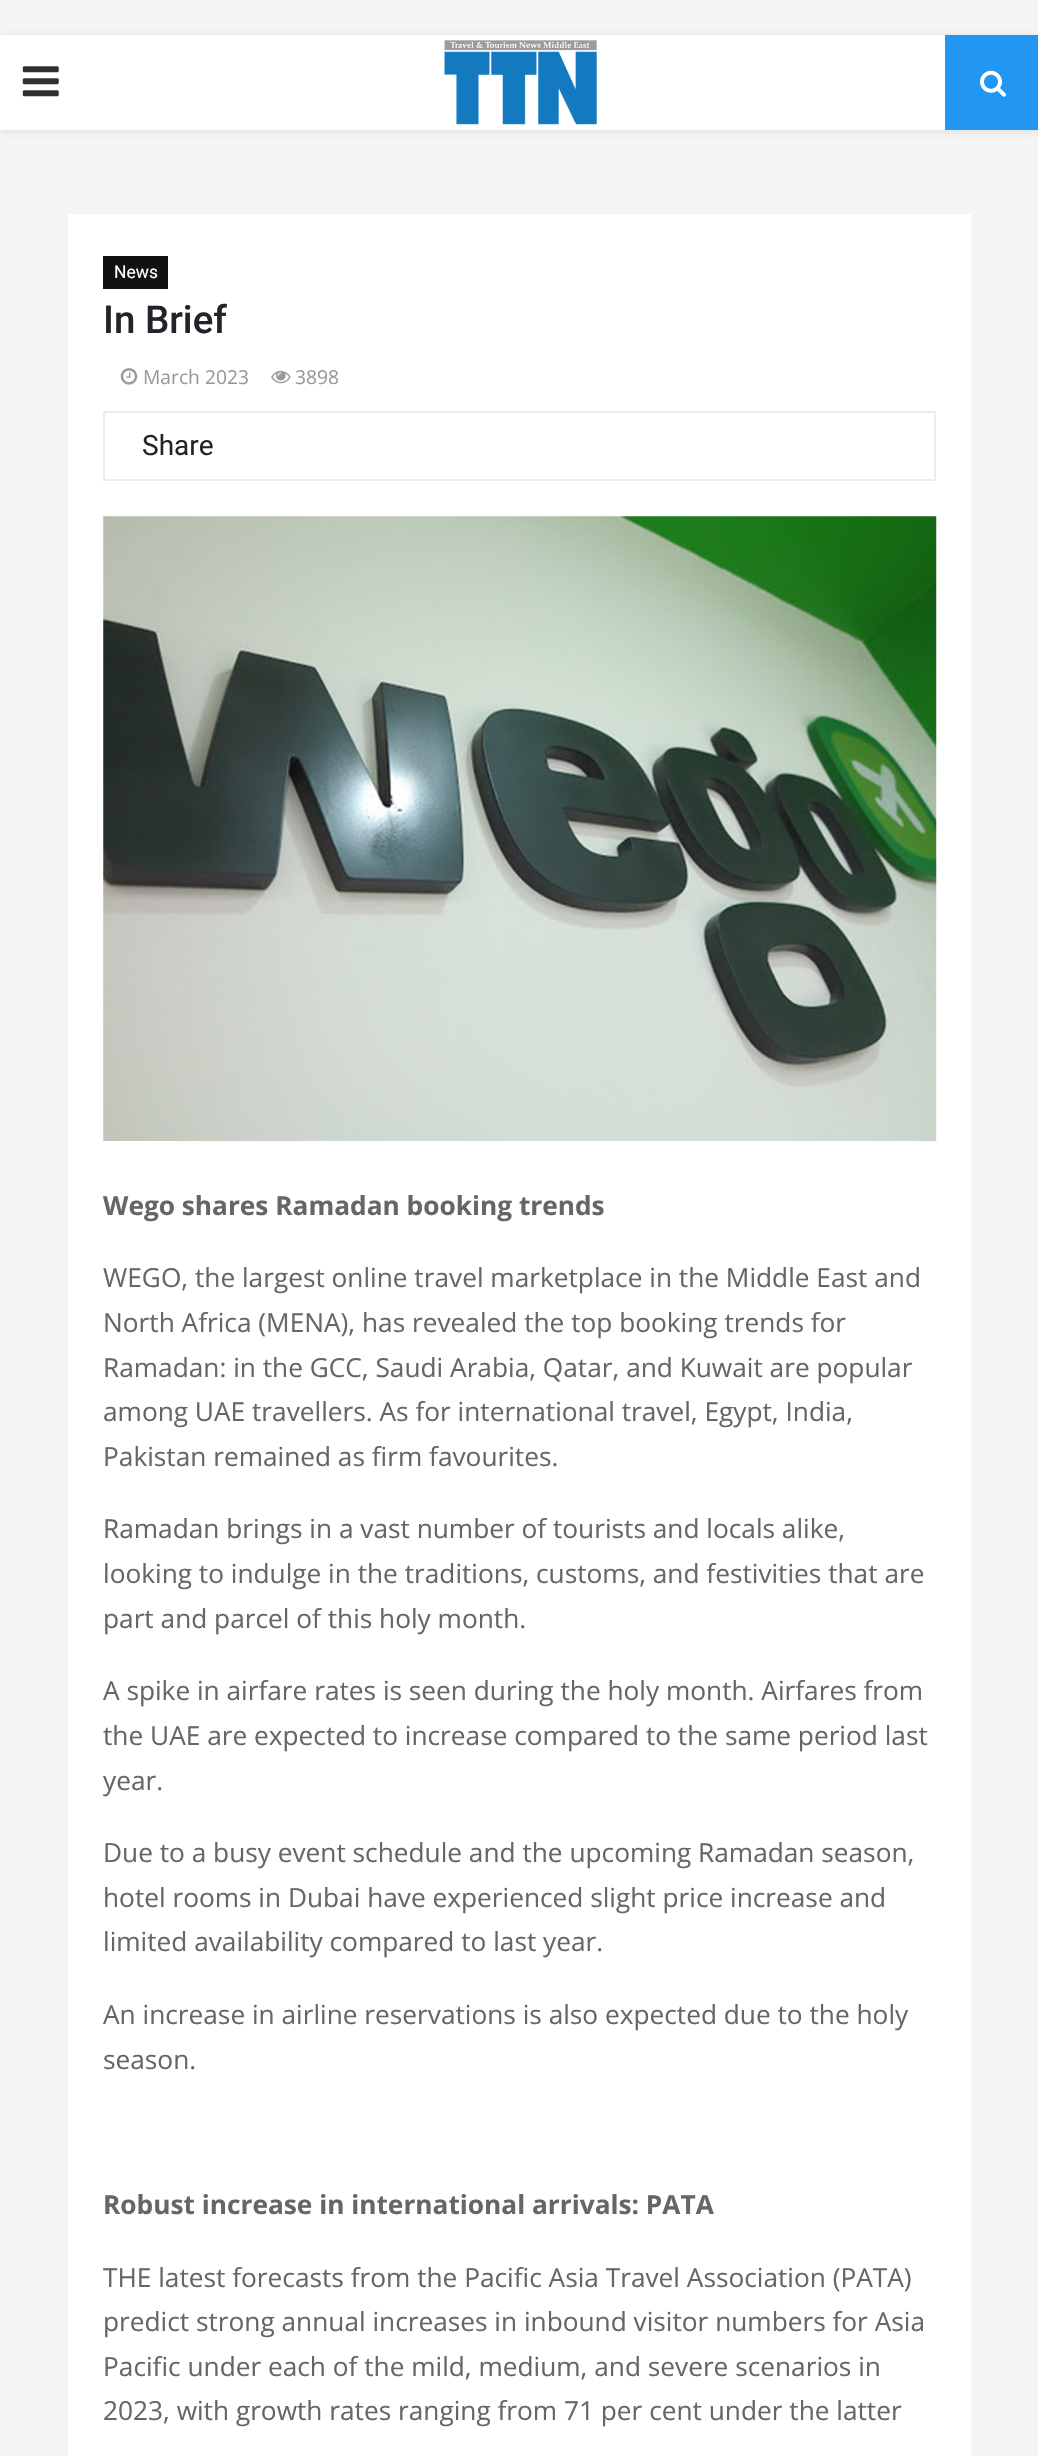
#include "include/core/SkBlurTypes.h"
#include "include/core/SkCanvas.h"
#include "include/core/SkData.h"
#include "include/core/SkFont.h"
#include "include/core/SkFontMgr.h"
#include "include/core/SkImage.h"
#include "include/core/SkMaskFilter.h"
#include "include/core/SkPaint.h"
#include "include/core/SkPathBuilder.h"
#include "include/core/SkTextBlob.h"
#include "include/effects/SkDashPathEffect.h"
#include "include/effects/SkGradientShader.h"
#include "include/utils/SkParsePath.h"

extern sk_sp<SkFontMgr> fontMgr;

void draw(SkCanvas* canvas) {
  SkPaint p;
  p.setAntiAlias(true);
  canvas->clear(SkColorSetRGB(245, 245, 245));
  p.setColor(SkColorSetARGB(117, 190, 190, 190));
  p.setMaskFilter(SkMaskFilter::MakeBlur(kNormal_SkBlurStyle, 4.5f));
  canvas->drawRect(SkRect::MakeLTRB(0, 37, 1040, 131), p);
  p.setMaskFilter(nullptr);
  p.setColor(SK_ColorWHITE);
  canvas->drawRect(SkRect::MakeLTRB(0, 35, 945, 130), p);
  canvas->drawImageRect(SkImages::DeferredFromEncodedData(SkData::MakeFromFileName("images/1.png")), SkRect::MakeLTRB(22, 66, 59, 97), SkSamplingOptions());
  canvas->drawImageRect(SkImages::DeferredFromEncodedData(SkData::MakeFromFileName("images/2.png")), SkRect::MakeLTRB(444, 40, 597, 125), SkSamplingOptions());
  p.setColor(SkColorSetRGB(33, 150, 243));
  canvas->drawRect(SkRect::MakeLTRB(945, 35, 1038, 130), p);
  canvas->drawImageRect(SkImages::DeferredFromEncodedData(SkData::MakeFromFileName("images/3.png")), SkRect::MakeLTRB(980, 70, 1006, 97), SkSamplingOptions());
  p.setColor(SK_ColorWHITE);
  canvas->drawRect(SkRect::MakeLTRB(68, 214, 971, 2456), p);
  p.setColor(SkColorSetRGB(17, 17, 17));
  canvas->drawRect(SkRect::MakeLTRB(103, 256, 168, 289), p);
  canvas->drawImageRect(SkImages::DeferredFromEncodedData(SkData::MakeFromFileName("images/4.png")), SkRect::MakeLTRB(120, 368, 138, 385), SkSamplingOptions());
  canvas->drawImageRect(SkImages::DeferredFromEncodedData(SkData::MakeFromFileName("images/5.png")), SkRect::MakeLTRB(271, 370, 291, 384), SkSamplingOptions());
  p.setStyle(SkPaint::kStroke_Style);
  p.setStrokeWidth(2);
  p.setColor(SkColorSetRGB(236, 236, 236));
  canvas->drawRect(SkRect::MakeLTRB(104, 412, 935, 480), p);
  canvas->drawImageRect(SkImages::DeferredFromEncodedData(SkData::MakeFromFileName("images/6.png")), SkRect::MakeLTRB(103, 516, 937, 1141), SkSamplingOptions());
  SkFont font1(fontMgr->matchFamilyStyle("Roboto", SkFontStyle::Normal()), 17.5f);
  font1.setSubpixel(true);
  p.setStyle(SkPaint::kFill_Style);
  p.setColor(SK_ColorWHITE);
  canvas->drawString("News", 114, 278, font1, p);
  SkFont font2(fontMgr->matchFamilyStyle("Roboto", SkFontStyle(500, SkFontStyle::kNormal_Width, SkFontStyle::kUpright_Slant)), 38.5f);
  font2.setSubpixel(true);
  p.setColor(SkColorSetRGB(33, 37, 41));
  canvas->drawString("In Brief", 103, 333, font2, p);
  SkFont font3(fontMgr->matchFamilyStyle("Open Sans", SkFontStyle::Normal()), 19.25f);
  font3.setSubpixel(true);
  p.setColor(SkColorSetRGB(153, 153, 153));
  canvas->drawString("March 2023", 143, 384, font3, p);
  canvas->drawString("3898", 295, 384, font3, p);
  SkFont font4(fontMgr->matchFamilyStyle("Roboto", SkFontStyle::Normal()), 28);
  font4.setSubpixel(true);
  p.setColor(SkColorSetRGB(33, 37, 41));
  canvas->drawString("Share", 142, 455, font4, p);
  SkFont font5(fontMgr->matchFamilyStyle("Open Sans", SkFontStyle::Bold()), 26.25f);
  font5.setSubpixel(true);
  p.setColor(SkColorSetRGB(102, 102, 102));
  canvas->drawString("Wego shares Ramadan booking trends", 103, 1215, font5, p);
  SkFont font6(fontMgr->matchFamilyStyle("Open Sans", SkFontStyle::Normal()), 26.25f);
  font6.setSubpixel(true);
  canvas->drawString("WEGO, the largest online travel marketplace in the Middle East and", 103, 1287, font6, p);
  canvas->drawString("North Africa (MENA), has revealed the top booking trends for", 103, 1332, font6, p);
  canvas->drawString("Ramadan: in the GCC, Saudi Arabia, Qatar, and Kuwait are popular", 103, 1377, font6, p);
  canvas->drawString("among UAE travellers. As for international travel, Egypt, India,", 103, 1421, font6, p);
  canvas->drawString("Pakistan remained as firm favourites.", 103, 1466, font6, p);
  canvas->drawString("Ramadan brings in a vast number of tourists and locals alike,", 103, 1538, font6, p);
  canvas->drawString("looking to indulge in the traditions, customs, and festivities that are", 103, 1583, font6, p);
  canvas->drawString("part and parcel of this holy month.", 103, 1628, font6, p);
  canvas->drawString("A spike in airfare rates is seen during the holy month. Airfares from", 103, 1700, font6, p);
  canvas->drawString("the UAE are expected to increase compared to the same period last", 103, 1745, font6, p);
  canvas->drawString("year.", 103, 1790, font6, p);
  canvas->drawString("Due to a busy event schedule and the upcoming Ramadan season,", 103, 1862, font6, p);
  canvas->drawString("hotel rooms in Dubai have experienced slight price increase and", 103, 1907, font6, p);
  canvas->drawString("limited availability compared to last year.", 103, 1951, font6, p);
  canvas->drawString("An increase in airline reservations is also expected due to the holy", 103, 2024, font6, p);
  canvas->drawString("season.", 103, 2069, font6, p);
  canvas->drawString("Robust increase in international arrivals: PATA", 103, 2214, font5, p);
  canvas->drawString("THE latest forecasts from the Pacific Asia Travel Association (PATA)", 103, 2287, font6, p);
  canvas->drawString("predict strong annual increases in inbound visitor numbers for Asia", 103, 2331, font6, p);
  canvas->drawString("Pacific under each of the mild, medium, and severe scenarios in", 103, 2376, font6, p);
  canvas->drawString("2023, with growth rates ranging from 71 per cent under the latter", 103, 2420, font6, p);
}
